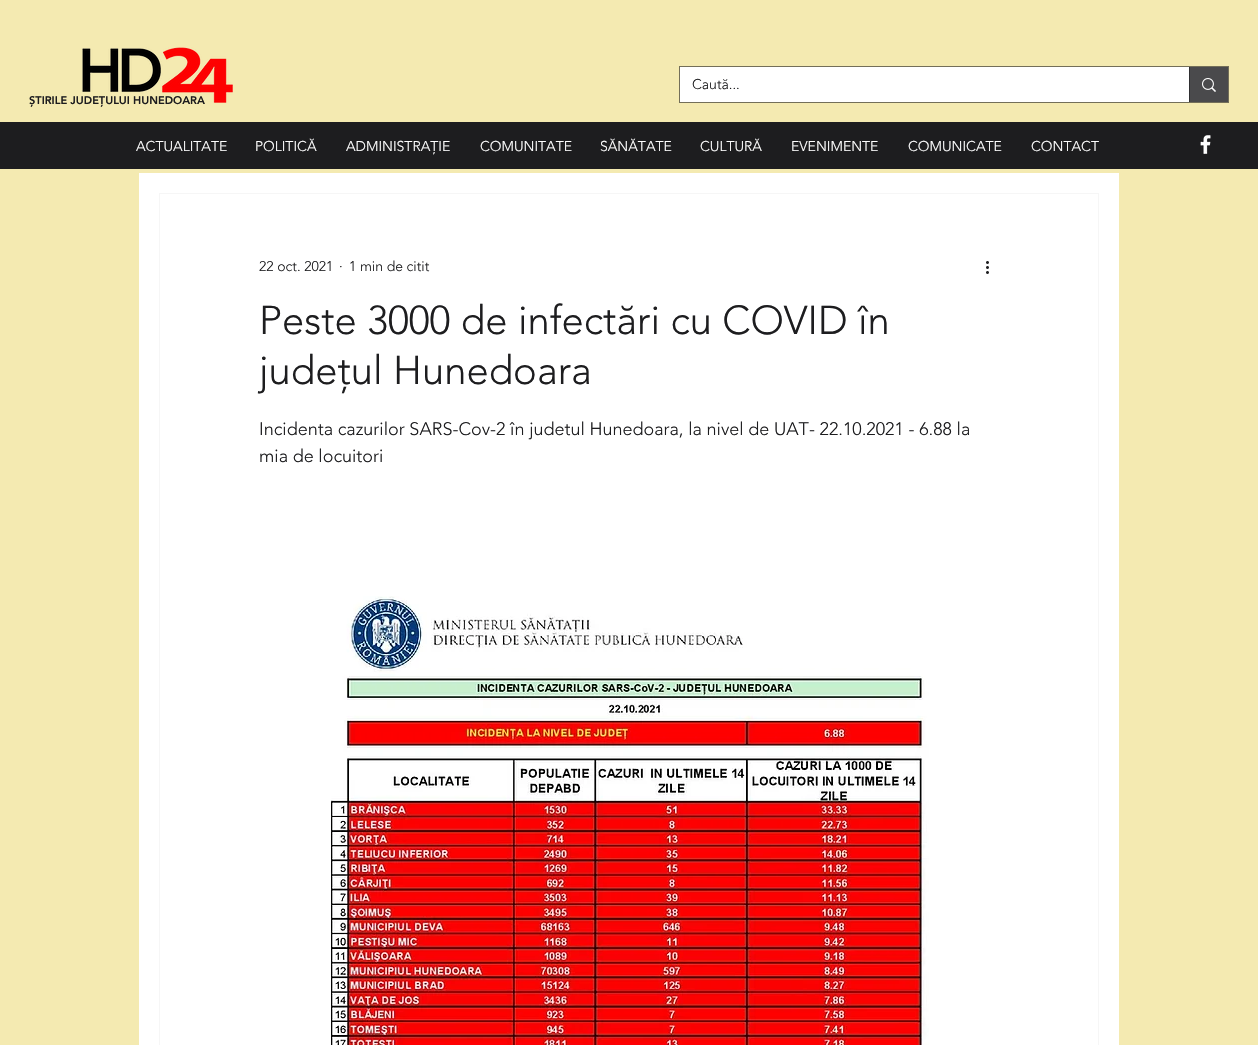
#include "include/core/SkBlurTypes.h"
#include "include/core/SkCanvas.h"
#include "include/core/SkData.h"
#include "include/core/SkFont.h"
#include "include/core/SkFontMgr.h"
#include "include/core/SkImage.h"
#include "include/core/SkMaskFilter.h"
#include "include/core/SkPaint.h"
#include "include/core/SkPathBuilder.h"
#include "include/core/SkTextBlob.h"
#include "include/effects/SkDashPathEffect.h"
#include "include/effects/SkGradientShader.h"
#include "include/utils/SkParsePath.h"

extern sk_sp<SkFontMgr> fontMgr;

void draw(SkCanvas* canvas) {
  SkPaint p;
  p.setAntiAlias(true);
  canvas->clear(SkColorSetRGB(244, 234, 177));
  canvas->drawImageRect(SkImages::DeferredFromEncodedData(SkData::MakeFromFileName("images/1.png")), SkRect::MakeLTRB(82, 47, 233, 103), SkSamplingOptions());
  p.setStyle(SkPaint::kStroke_Style);
  p.setStrokeWidth(1);
  p.setColor(SkColorSetRGB(115, 111, 89));
  canvas->drawRect(SkRect::MakeLTRB(679.5f, 66.5f, 1228.5f, 102.5f), p);
  p.setStyle(SkPaint::kFill_Style);
  p.setColor(SK_ColorWHITE);
  canvas->drawRect(SkRect::MakeLTRB(680, 67, 1189, 102), p);
  p.setColor(SkColorSetRGB(74, 74, 76));
  canvas->drawRect(SkRect::MakeLTRB(1190, 67, 1228, 102), p);
  p.setColor(SkColorSetRGB(47, 47, 49));
  canvas->drawRect(SkRect::MakeLTRB(1189, 67, 1190, 102), p);
  canvas->drawImageRect(SkImages::DeferredFromEncodedData(SkData::MakeFromFileName("images/2.png")), SkRect::MakeLTRB(1202, 78, 1216, 92), SkSamplingOptions());
  p.setColor(SkColorSetRGB(29, 29, 31));
  canvas->drawRect(SkRect::MakeLTRB(0, 122, 1258, 169), p);
  canvas->drawImageRect(SkImages::DeferredFromEncodedData(SkData::MakeFromFileName("images/3.png")), SkRect::MakeLTRB(1200, 135, 1211, 154), SkSamplingOptions());
  p.setColor(SK_ColorWHITE);
  canvas->drawRect(SkRect::MakeLTRB(139, 173, 1119, 1045), p);
  p.setStyle(SkPaint::kStroke_Style);
  p.setColor(SkColorSetRGB(246, 246, 246));
  canvas->drawRect(SkRect::MakeLTRB(159.5f, 193.5f, 1098.5f, 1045.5f), p);
  canvas->drawImageRect(SkImages::DeferredFromEncodedData(SkData::MakeFromFileName("images/4.png")), SkRect::MakeLTRB(986, 261, 989, 274), SkSamplingOptions());
  canvas->drawImageRect(SkImages::DeferredFromEncodedData(SkData::MakeFromFileName("images/5.png")), SkRect::MakeLTRB(331, 596, 929, 1045), SkSamplingOptions());
  SkFont font1(fontMgr->matchFamilyStyle("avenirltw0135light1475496", SkFontStyle(300, SkFontStyle::kNormal_Width, SkFontStyle::kUpright_Slant)), 14);
  font1.setSubpixel(true);
  p.setStyle(SkPaint::kFill_Style);
  p.setColor(SkColorSetRGB(29, 29, 31));
  canvas->drawString("Caută...", 692, 89, font1, p);
  SkFont font2(fontMgr->matchFamilyStyle("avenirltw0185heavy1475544", SkFontStyle(900, SkFontStyle::kNormal_Width, SkFontStyle::kUpright_Slant)), 11);
  font2.setSubpixel(true);
  canvas->drawString("ȘTIRILE JUDEȚULUI HUNEDOARA", 29, 104, font2, p);
  p.setColor(SK_ColorWHITE);
  canvas->drawString("ACTUALITATE", 136, 151, font1, p);
  canvas->drawString("POLITICĂ", 255, 151, font1, p);
  canvas->drawString("ADMINISTRAȚIE", 346, 151, font1, p);
  canvas->drawString("COMUNITATE", 480, 151, font1, p);
  canvas->drawString("SĂNĂTATE", 600, 151, font1, p);
  canvas->drawString("CULTURĂ", 700, 151, font1, p);
  canvas->drawString("EVENIMENTE", 791, 151, font1, p);
  canvas->drawString("COMUNICATE", 908, 151, font1, p);
  canvas->drawString("CONTACT", 1031, 151, font1, p);
  p.setColor(SkColorSetRGB(29, 29, 31));
  canvas->drawString("22 oct. 2021", 259, 271, font1, p);
  canvas->drawString("·", 339, 271, font1, p);
  canvas->drawString("1 min de citit", 349, 271, font1, p);
  SkFont font3(fontMgr->matchFamilyStyle("avenirltw0135light1475496", SkFontStyle(300, SkFontStyle::kNormal_Width, SkFontStyle::kUpright_Slant)), 40);
  font3.setSubpixel(true);
  canvas->drawString("Peste 3000 de infectări cu COVID în", 259, 334, font3, p);
  canvas->drawString("județul Hunedoara", 259, 384, font3, p);
  SkFont font4(fontMgr->matchFamilyStyle("avenirltw0135light1475496", SkFontStyle(300, SkFontStyle::kNormal_Width, SkFontStyle::kUpright_Slant)), 18);
  font4.setSubpixel(true);
  canvas->drawString("Incidenta cazurilor SARS-Cov-2 în judetul Hunedoara, la nivel de UAT- 22.10.2021 - 6.88 la", 259, 435, font4, p);
  canvas->drawString("mia de locuitori", 259, 462, font4, p);
}
